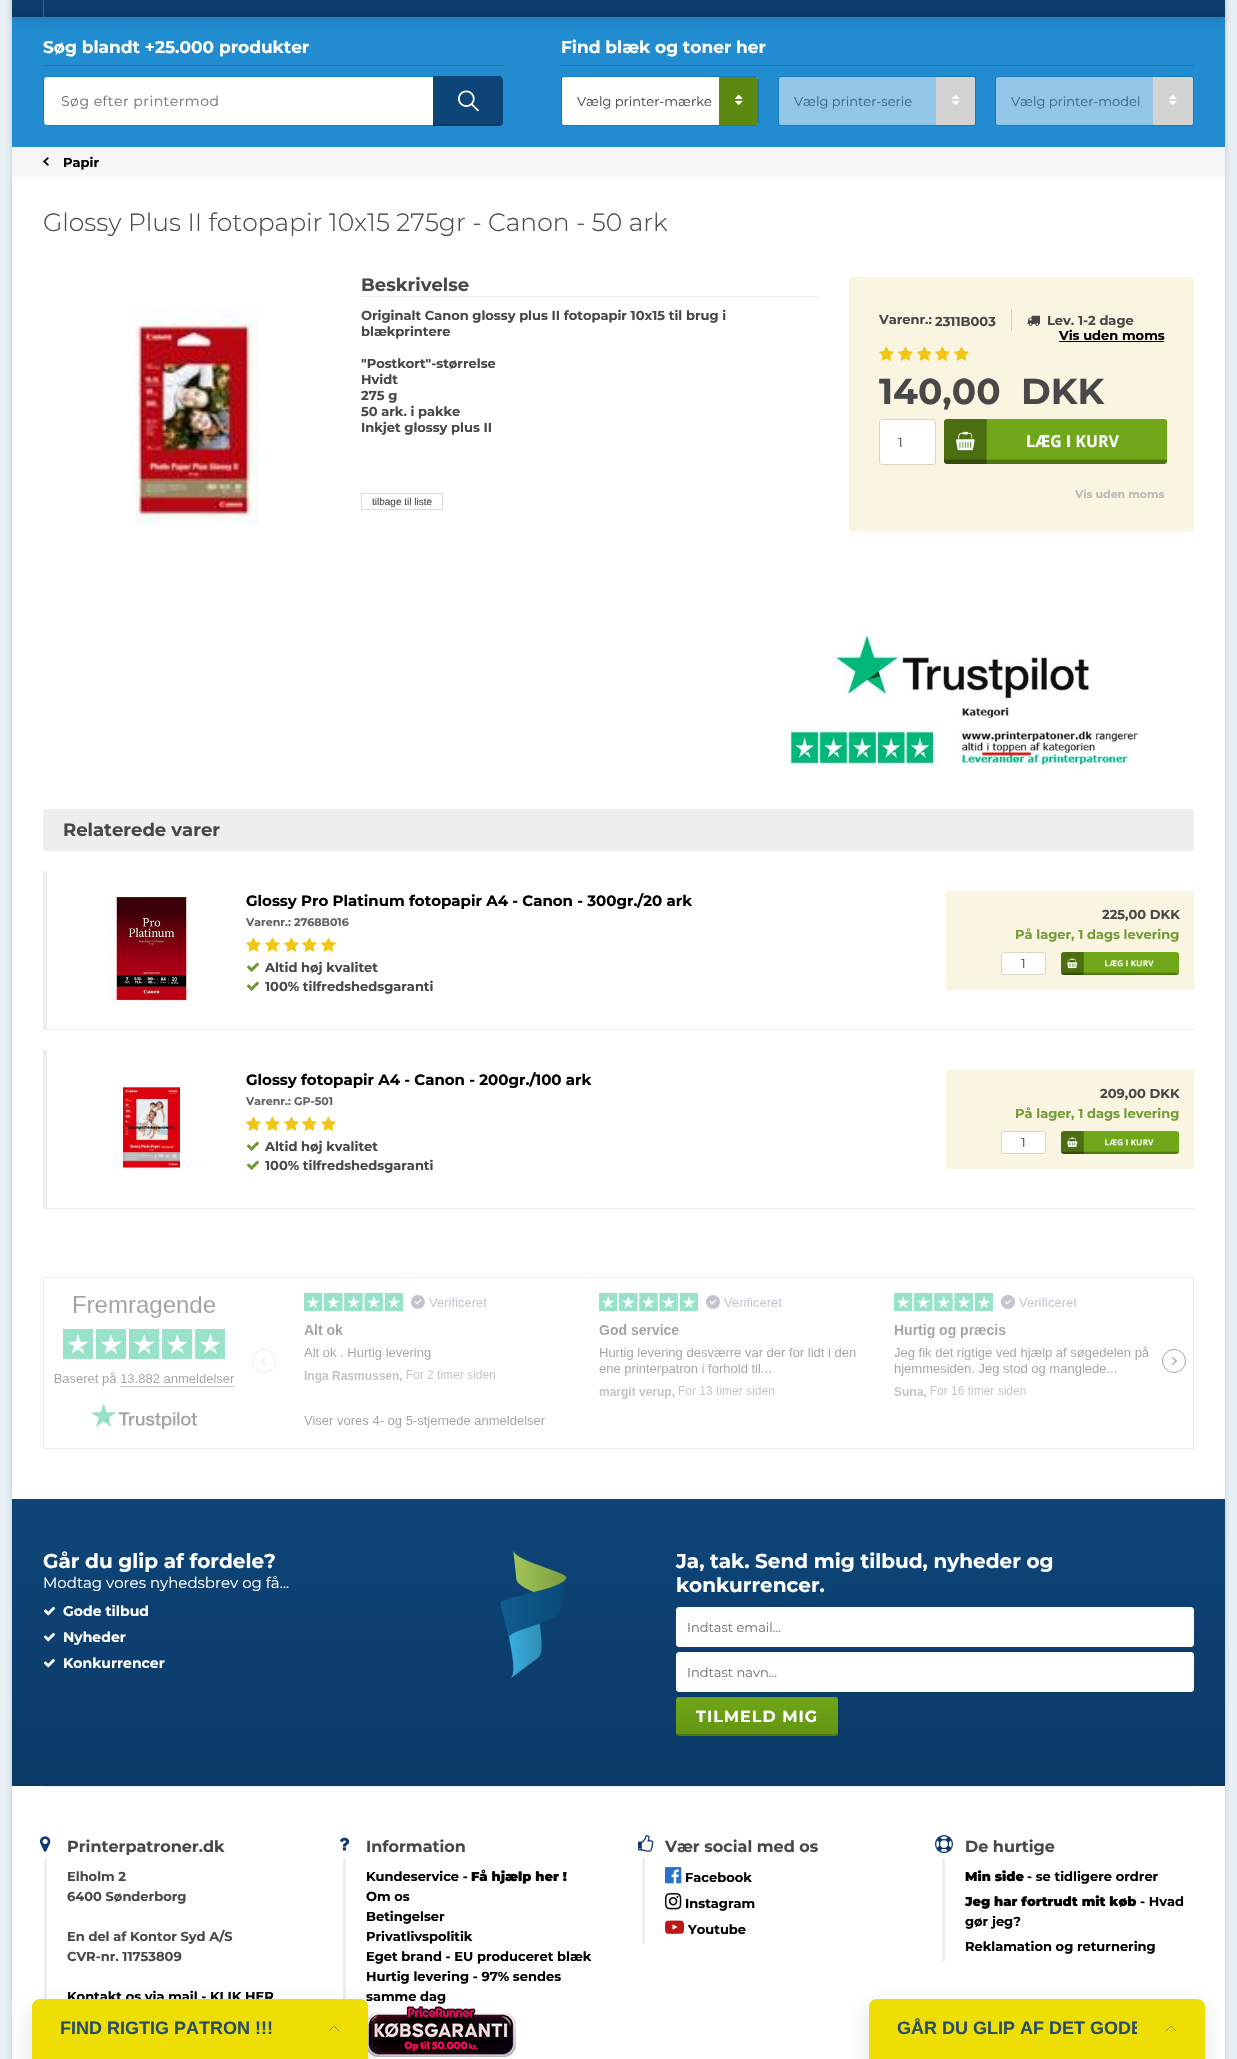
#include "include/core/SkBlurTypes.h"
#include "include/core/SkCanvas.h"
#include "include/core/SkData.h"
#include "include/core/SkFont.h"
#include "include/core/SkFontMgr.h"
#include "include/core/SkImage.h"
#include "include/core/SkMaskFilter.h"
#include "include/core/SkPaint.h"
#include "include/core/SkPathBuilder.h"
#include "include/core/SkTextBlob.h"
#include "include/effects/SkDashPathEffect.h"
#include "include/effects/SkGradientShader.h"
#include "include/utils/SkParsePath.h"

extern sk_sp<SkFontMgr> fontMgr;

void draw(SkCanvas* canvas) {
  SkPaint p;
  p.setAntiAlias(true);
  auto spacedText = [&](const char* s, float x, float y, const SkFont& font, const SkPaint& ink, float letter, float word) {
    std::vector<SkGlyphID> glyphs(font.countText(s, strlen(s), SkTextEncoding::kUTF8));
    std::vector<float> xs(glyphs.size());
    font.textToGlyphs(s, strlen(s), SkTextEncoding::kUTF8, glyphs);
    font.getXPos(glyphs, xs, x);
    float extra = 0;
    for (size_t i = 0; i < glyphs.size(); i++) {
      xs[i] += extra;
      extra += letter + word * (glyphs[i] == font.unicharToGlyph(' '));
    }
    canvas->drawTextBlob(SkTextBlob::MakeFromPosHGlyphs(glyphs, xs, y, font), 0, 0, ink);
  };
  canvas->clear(SkColorSetRGB(232, 240, 246));
  p.setColor(SkColorSetARGB(51, 16, 48, 69));
  p.setMaskFilter(SkMaskFilter::MakeBlur(kNormal_SkBlurStyle, 3));
  canvas->drawRoundRect(SkRect::MakeLTRB(12, -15, 1225, 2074), 6, 6, p);
  p.setMaskFilter(nullptr);
  p.setColor(SK_ColorWHITE);
  canvas->drawRect(SkRect::MakeLTRB(12, 177, 1225, 2059), p);
  p.setColor(SkColorSetRGB(34, 140, 209));
  canvas->drawRect(SkRect::MakeLTRB(12, 17, 1225, 147), p);
  p.setColor(SkColorSetARGB(26, 0, 0, 0));
  p.setMaskFilter(SkMaskFilter::MakeBlur(kNormal_SkBlurStyle, 2.5f));
  canvas->drawRect(SkRect::MakeLTRB(12, -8, 1225, 22), p);
  p.setMaskFilter(nullptr);
  {
    const SkColor colors[] = {SkColorSetRGB(14, 69, 121), SkColorSetRGB(11, 57, 102)};
    const float stops[] = {0, 1};
    const SkPoint ends[] = {{619, -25}, {619, 17}};
    p.setShader(SkGradientShader::MakeLinear(ends, colors, stops, 2, SkTileMode::kClamp));
    p.setAlpha(255);
  }
  canvas->drawRect(SkRect::MakeLTRB(12, 0, 1225, 17), p);
  {
    const SkColor colors[] = {SkColorSetRGB(62, 106, 148), SkColorSetRGB(60, 97, 133)};
    const float stops[] = {0, 1};
    const SkPoint ends[] = {{619, -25}, {619, 17}};
    p.setShader(SkGradientShader::MakeLinear(ends, colors, stops, 2, SkTileMode::kClamp));
    p.setAlpha(255);
  }
  canvas->drawRect(SkRect::MakeLTRB(43, 0, 44, 17), p);
  p.setShader(nullptr);
  p.setColor(SkColorSetRGB(21, 121, 186));
  canvas->drawRect(SkRect::MakeLTRB(43, 65, 503, 66), p);
  p.setColor(SK_ColorWHITE);
  canvas->drawRoundRect(SkRect::MakeLTRB(43.5f, 76.5f, 502.5f, 125.5f), 3.5f, 3.5f, p);
  p.setStyle(SkPaint::kStroke_Style);
  p.setStrokeWidth(1);
  p.setColor(SkColorSetRGB(15, 121, 190));
  canvas->drawRoundRect(SkRect::MakeLTRB(43.5f, 76.5f, 502.5f, 125.5f), 3.5f, 3.5f, p);
  p.setStyle(SkPaint::kFill_Style);
  p.setColor(SkColorSetRGB(14, 69, 121));
  canvas->drawPath(SkPathBuilder().moveTo(433, 76).lineTo(499, 76).cubicTo(501, 76, 503, 78, 503, 80).lineTo(503, 122).cubicTo(503, 124, 501, 126, 499, 126).lineTo(433, 126).close().detach(), p);
  canvas->drawImageRect(SkImages::DeferredFromEncodedData(SkData::MakeFromFileName("images/1.png")), SkRect::MakeLTRB(458, 90, 479, 111), SkSamplingOptions());
  p.setColor(SkColorSetARGB(51, 0, 0, 0));
  canvas->drawPath(SkPathBuilder().moveTo(433, 124).lineTo(433, 126).lineTo(499, 126).cubicTo(501, 126, 503, 124, 503, 122).cubicTo(502, 123, 500, 124, 499, 124).close().detach(), p);
  p.setColor(SkColorSetRGB(21, 121, 186));
  canvas->drawRect(SkRect::MakeLTRB(561, 65, 1194, 66), p);
  p.setStyle(SkPaint::kStroke_Style);
  canvas->drawRoundRect(SkRect::MakeLTRB(561.5f, 76.5f, 758.5f, 125.5f), 2.5f, 2.5f, p);
  p.setStyle(SkPaint::kFill_Style);
  p.setColor(SK_ColorWHITE);
  canvas->drawRoundRect(SkRect::MakeLTRB(562, 77, 758, 125), 2, 2, p);
  p.setColor(SkColorSetRGB(91, 137, 17));
  canvas->drawPath(SkPathBuilder().moveTo(719, 77).lineTo(756, 77).cubicTo(757, 77, 758, 78, 758, 79).lineTo(758, 123).cubicTo(758, 124, 757, 125, 756, 125).lineTo(719, 125).close().detach(), p);
  canvas->drawImageRect(SkImages::DeferredFromEncodedData(SkData::MakeFromFileName("images/2.png")), SkRect::MakeLTRB(735, 94, 743, 105), SkSamplingOptions());
  p.setStyle(SkPaint::kStroke_Style);
  p.setColor(SkColorSetRGB(21, 121, 186));
  canvas->drawRoundRect(SkRect::MakeLTRB(778.5f, 76.5f, 975.5f, 125.5f), 2.5f, 2.5f, p);
  p.setStyle(SkPaint::kFill_Style);
  p.setColor(SkColorSetARGB(128, 255, 255, 255));
  canvas->drawRoundRect(SkRect::MakeLTRB(779, 77, 975, 125), 2, 2, p);
  p.setColor(SkColorSetRGB(211, 211, 211));
  canvas->drawPath(SkPathBuilder().moveTo(936, 77).lineTo(973, 77).cubicTo(974, 77, 975, 78, 975, 79).lineTo(975, 123).cubicTo(975, 124, 974, 125, 973, 125).lineTo(936, 125).close().detach(), p);
  canvas->drawImageRect(SkImages::DeferredFromEncodedData(SkData::MakeFromFileName("images/3.png")), SkRect::MakeLTRB(952, 94, 960, 105), SkSamplingOptions());
  p.setStyle(SkPaint::kStroke_Style);
  p.setColor(SkColorSetRGB(21, 121, 186));
  canvas->drawRoundRect(SkRect::MakeLTRB(995.5f, 76.5f, 1193.5f, 125.5f), 2.5f, 2.5f, p);
  p.setStyle(SkPaint::kFill_Style);
  p.setColor(SkColorSetARGB(128, 255, 255, 255));
  canvas->drawRoundRect(SkRect::MakeLTRB(996, 77, 1193, 125), 2, 2, p);
  p.setColor(SkColorSetRGB(211, 211, 211));
  canvas->drawPath(SkPathBuilder().moveTo(1153, 77).lineTo(1191, 77).cubicTo(1192, 77, 1193, 78, 1193, 79).lineTo(1193, 123).cubicTo(1193, 124, 1192, 125, 1191, 125).lineTo(1153, 125).close().detach(), p);
  canvas->drawImageRect(SkImages::DeferredFromEncodedData(SkData::MakeFromFileName("images/3.png")), SkRect::MakeLTRB(1169, 94, 1177, 105), SkSamplingOptions());
  p.setColor(SkColorSetRGB(246, 246, 246));
  canvas->drawRect(SkRect::MakeLTRB(12, 147, 1225, 177), p);
  canvas->drawImageRect(SkImages::DeferredFromEncodedData(SkData::MakeFromFileName("images/4.png")), SkRect::MakeLTRB(43, 157, 49, 166), SkSamplingOptions());
  canvas->drawImageRect(SkImages::DeferredFromEncodedData(SkData::MakeFromFileName("images/5.png")), SkRect::MakeLTRB(134, 307, 259, 525), SkSamplingOptions());
  p.setColor(SkColorSetRGB(238, 238, 238));
  canvas->drawRect(SkRect::MakeLTRB(361, 296, 819, 297), p);
  p.setStyle(SkPaint::kStroke_Style);
  p.setColor(SkColorSetRGB(218, 218, 218));
  canvas->drawRect(SkRect::MakeLTRB(361.5f, 493.5f, 442.5f, 509.5f), p);
  p.setStyle(SkPaint::kFill_Style);
  p.setColor(SkColorSetRGB(250, 245, 225));
  canvas->drawRect(SkRect::MakeLTRB(849, 277, 1194, 531), p);
  p.setColor(SkColorSetRGB(215, 208, 182));
  canvas->drawRect(SkRect::MakeLTRB(1011, 309, 1012, 331), p);
  canvas->drawImageRect(SkImages::DeferredFromEncodedData(SkData::MakeFromFileName("images/6.png")), SkRect::MakeLTRB(1027, 315, 1040, 326), SkSamplingOptions());
  p.setColor(SK_ColorBLACK);
  canvas->drawRect(SkRect::MakeLTRB(1059, 341, 1164, 342), p);
  canvas->drawImageRect(SkImages::DeferredFromEncodedData(SkData::MakeFromFileName("images/7.png")), SkRect::MakeLTRB(879, 346, 894, 361), SkSamplingOptions());
  canvas->drawImageRect(SkImages::DeferredFromEncodedData(SkData::MakeFromFileName("images/7.png")), SkRect::MakeLTRB(898, 346, 913, 361), SkSamplingOptions());
  canvas->drawImageRect(SkImages::DeferredFromEncodedData(SkData::MakeFromFileName("images/7.png")), SkRect::MakeLTRB(917, 346, 932, 361), SkSamplingOptions());
  canvas->drawImageRect(SkImages::DeferredFromEncodedData(SkData::MakeFromFileName("images/7.png")), SkRect::MakeLTRB(935, 346, 950, 361), SkSamplingOptions());
  canvas->drawImageRect(SkImages::DeferredFromEncodedData(SkData::MakeFromFileName("images/7.png")), SkRect::MakeLTRB(954, 346, 969, 361), SkSamplingOptions());
  p.setColor(SK_ColorWHITE);
  canvas->drawRoundRect(SkRect::MakeLTRB(879.5f, 419.5f, 935.5f, 464.5f), 2.5f, 2.5f, p);
  p.setStyle(SkPaint::kStroke_Style);
  p.setColor(SkColorSetRGB(220, 214, 192));
  canvas->drawRoundRect(SkRect::MakeLTRB(879.5f, 419.5f, 935.5f, 464.5f), 2.5f, 2.5f, p);
  canvas->drawImageRect(SkImages::DeferredFromEncodedData(SkData::MakeFromFileName("images/8.png")), SkRect::MakeLTRB(944, 419, 1167, 464), SkSamplingOptions());
  canvas->drawImageRect(SkImages::DeferredFromEncodedData(SkData::MakeFromFileName("images/9.png")), SkRect::MakeLTRB(787, 629, 1142, 770), SkSamplingOptions());
  p.setStyle(SkPaint::kFill_Style);
  p.setColor(SkColorSetRGB(238, 238, 238));
  canvas->drawPath(SkPathBuilder().moveTo(46, 809).lineTo(1191, 809).cubicTo(1192.5f, 809, 1194, 810.5f, 1194, 812).lineTo(1194, 851).lineTo(43, 851).lineTo(43, 812).cubicTo(43, 810.5f, 44.5f, 809, 46, 809).close().detach(), p);
  canvas->drawRect(SkRect::MakeLTRB(43, 1029, 1194, 1030), p);
  canvas->drawRect(SkRect::MakeLTRB(43, 871, 47, 1030), p);
  canvas->drawImageRect(SkImages::DeferredFromEncodedData(SkData::MakeFromFileName("images/10.png")), SkRect::MakeLTRB(108, 896, 192, 1002), SkSamplingOptions());
  canvas->drawImageRect(SkImages::DeferredFromEncodedData(SkData::MakeFromFileName("images/11.png")), SkRect::MakeLTRB(246, 937, 261, 952), SkSamplingOptions());
  canvas->drawImageRect(SkImages::DeferredFromEncodedData(SkData::MakeFromFileName("images/11.png")), SkRect::MakeLTRB(265, 937, 280, 952), SkSamplingOptions());
  canvas->drawImageRect(SkImages::DeferredFromEncodedData(SkData::MakeFromFileName("images/11.png")), SkRect::MakeLTRB(284, 937, 299, 952), SkSamplingOptions());
  canvas->drawImageRect(SkImages::DeferredFromEncodedData(SkData::MakeFromFileName("images/11.png")), SkRect::MakeLTRB(302, 937, 317, 952), SkSamplingOptions());
  canvas->drawImageRect(SkImages::DeferredFromEncodedData(SkData::MakeFromFileName("images/11.png")), SkRect::MakeLTRB(321, 937, 336, 952), SkSamplingOptions());
  canvas->drawImageRect(SkImages::DeferredFromEncodedData(SkData::MakeFromFileName("images/12.png")), SkRect::MakeLTRB(247, 962, 259, 972), SkSamplingOptions());
  canvas->drawImageRect(SkImages::DeferredFromEncodedData(SkData::MakeFromFileName("images/12.png")), SkRect::MakeLTRB(247, 981, 259, 991), SkSamplingOptions());
  p.setColor(SkColorSetRGB(250, 245, 225));
  canvas->drawRect(SkRect::MakeLTRB(946, 891, 1194, 990), p);
  p.setColor(SK_ColorWHITE);
  canvas->drawRoundRect(SkRect::MakeLTRB(1001.5f, 952.5f, 1045.5f, 974.5f), 2.5f, 2.5f, p);
  p.setStyle(SkPaint::kStroke_Style);
  p.setColor(SkColorSetRGB(220, 214, 192));
  canvas->drawRoundRect(SkRect::MakeLTRB(1001.5f, 952.5f, 1045.5f, 974.5f), 2.5f, 2.5f, p);
  canvas->drawImageRect(SkImages::DeferredFromEncodedData(SkData::MakeFromFileName("images/13.png")), SkRect::MakeLTRB(1061, 952, 1179, 975), SkSamplingOptions());
  p.setStyle(SkPaint::kFill_Style);
  p.setColor(SkColorSetRGB(238, 238, 238));
  canvas->drawRect(SkRect::MakeLTRB(43, 1208, 1194, 1209), p);
  canvas->drawRect(SkRect::MakeLTRB(43, 1050, 47, 1209), p);
  canvas->drawImageRect(SkImages::DeferredFromEncodedData(SkData::MakeFromFileName("images/14.png")), SkRect::MakeLTRB(123, 1086, 180, 1169), SkSamplingOptions());
  canvas->drawImageRect(SkImages::DeferredFromEncodedData(SkData::MakeFromFileName("images/11.png")), SkRect::MakeLTRB(246, 1116, 261, 1131), SkSamplingOptions());
  canvas->drawImageRect(SkImages::DeferredFromEncodedData(SkData::MakeFromFileName("images/11.png")), SkRect::MakeLTRB(265, 1116, 280, 1131), SkSamplingOptions());
  canvas->drawImageRect(SkImages::DeferredFromEncodedData(SkData::MakeFromFileName("images/11.png")), SkRect::MakeLTRB(284, 1116, 299, 1131), SkSamplingOptions());
  canvas->drawImageRect(SkImages::DeferredFromEncodedData(SkData::MakeFromFileName("images/11.png")), SkRect::MakeLTRB(302, 1116, 317, 1131), SkSamplingOptions());
  canvas->drawImageRect(SkImages::DeferredFromEncodedData(SkData::MakeFromFileName("images/11.png")), SkRect::MakeLTRB(321, 1116, 336, 1131), SkSamplingOptions());
  canvas->drawImageRect(SkImages::DeferredFromEncodedData(SkData::MakeFromFileName("images/12.png")), SkRect::MakeLTRB(247, 1141, 259, 1151), SkSamplingOptions());
  canvas->drawImageRect(SkImages::DeferredFromEncodedData(SkData::MakeFromFileName("images/12.png")), SkRect::MakeLTRB(247, 1160, 259, 1170), SkSamplingOptions());
  p.setColor(SkColorSetRGB(250, 245, 225));
  canvas->drawRect(SkRect::MakeLTRB(946, 1070, 1194, 1169), p);
  p.setColor(SK_ColorWHITE);
  canvas->drawRoundRect(SkRect::MakeLTRB(1001.5f, 1131.5f, 1045.5f, 1153.5f), 2.5f, 2.5f, p);
  p.setStyle(SkPaint::kStroke_Style);
  p.setColor(SkColorSetRGB(220, 214, 192));
  canvas->drawRoundRect(SkRect::MakeLTRB(1001.5f, 1131.5f, 1045.5f, 1153.5f), 2.5f, 2.5f, p);
  canvas->drawImageRect(SkImages::DeferredFromEncodedData(SkData::MakeFromFileName("images/15.png")), SkRect::MakeLTRB(1061, 1131, 1179, 1154), SkSamplingOptions());
  p.setColor(SkColorSetRGB(238, 238, 238));
  canvas->drawRect(SkRect::MakeLTRB(43.5f, 1277.5f, 1193.5f, 1448.5f), p);
  canvas->drawImageRect(SkImages::DeferredFromEncodedData(SkData::MakeFromFileName("images/16.png")), SkRect::MakeLTRB(54, 1293, 1186, 1429), SkSamplingOptions());
  p.setStyle(SkPaint::kFill_Style);
  {
    const SkColor colors[] = {SkColorSetRGB(14, 69, 121), SkColorSetRGB(11, 57, 102)};
    const float stops[] = {0, 1};
    const SkPoint ends[] = {{619, 1499}, {619, 1786}};
    p.setShader(SkGradientShader::MakeLinear(ends, colors, stops, 2, SkTileMode::kClamp));
    p.setAlpha(255);
  }
  canvas->drawRect(SkRect::MakeLTRB(12, 1499, 1225, 1786), p);
  canvas->drawImageRect(SkImages::DeferredFromEncodedData(SkData::MakeFromFileName("images/17.png")), SkRect::MakeLTRB(500, 1551, 567, 1678), SkSamplingOptions());
  canvas->drawImageRect(SkImages::DeferredFromEncodedData(SkData::MakeFromFileName("images/18.png")), SkRect::MakeLTRB(43, 1606, 56, 1616), SkSamplingOptions());
  canvas->drawImageRect(SkImages::DeferredFromEncodedData(SkData::MakeFromFileName("images/19.png")), SkRect::MakeLTRB(43, 1632, 56, 1642), SkSamplingOptions());
  canvas->drawImageRect(SkImages::DeferredFromEncodedData(SkData::MakeFromFileName("images/20.png")), SkRect::MakeLTRB(43, 1658, 56, 1668), SkSamplingOptions());
  p.setShader(nullptr);
  p.setColor(SK_ColorWHITE);
  canvas->drawRoundRect(SkRect::MakeLTRB(676.5f, 1607.5f, 1193.5f, 1646.5f), 2.5f, 2.5f, p);
  p.setStyle(SkPaint::kStroke_Style);
  canvas->drawRoundRect(SkRect::MakeLTRB(676.5f, 1607.5f, 1193.5f, 1646.5f), 2.5f, 2.5f, p);
  p.setStyle(SkPaint::kFill_Style);
  canvas->drawRoundRect(SkRect::MakeLTRB(676.5f, 1652.5f, 1193.5f, 1691.5f), 2.5f, 2.5f, p);
  p.setStyle(SkPaint::kStroke_Style);
  canvas->drawRoundRect(SkRect::MakeLTRB(676.5f, 1652.5f, 1193.5f, 1691.5f), 2.5f, 2.5f, p);
  p.setStyle(SkPaint::kFill_Style);
  {
    const SkColor colors[] = {SkColorSetRGB(112, 167, 24), SkColorSetRGB(98, 148, 18)};
    const float stops[] = {0, 1};
    const SkPoint ends[] = {{757, 1697}, {757, 1736}};
    p.setShader(SkGradientShader::MakeLinear(ends, colors, stops, 2, SkTileMode::kClamp));
    p.setAlpha(255);
  }
  canvas->drawRoundRect(SkRect::MakeLTRB(676, 1697, 838, 1736), 3, 3, p);
  p.setShader(nullptr);
  p.setColor(SkColorSetARGB(51, 0, 0, 0));
  canvas->drawPath(SkPathBuilder().moveTo(676, 1733).cubicTo(676, 1735, 677, 1736, 679, 1736).lineTo(835, 1736).cubicTo(837, 1736, 838, 1735, 838, 1733).lineTo(835, 1734).lineTo(783, 1734).lineTo(679, 1734).close().detach(), p);
  p.setColor(SkColorSetRGB(238, 238, 238));
  canvas->drawRect(SkRect::MakeLTRB(43, 1786, 1194, 1787), p);
  canvas->drawRect(SkRect::MakeLTRB(44, 1857, 47, 1999), p);
  p.setColor(SK_ColorWHITE);
  canvas->drawOval(SkRect::MakeLTRB(40, 1835.5f, 50, 1858.5f), p);
  canvas->drawImageRect(SkImages::DeferredFromEncodedData(SkData::MakeFromFileName("images/21.png")), SkRect::MakeLTRB(40, 1836, 51, 1852), SkSamplingOptions());
  p.setColor(SkColorSetRGB(238, 238, 238));
  canvas->drawRect(SkRect::MakeLTRB(343, 1857, 346, 1999), p);
  p.setColor(SK_ColorWHITE);
  canvas->drawOval(SkRect::MakeLTRB(339, 1835.5f, 349, 1858.5f), p);
  canvas->drawImageRect(SkImages::DeferredFromEncodedData(SkData::MakeFromFileName("images/22.png")), SkRect::MakeLTRB(340, 1837, 350, 1851), SkSamplingOptions());
  canvas->drawImageRect(SkImages::DeferredFromEncodedData(SkData::MakeFromFileName("images/23.png")), SkRect::MakeLTRB(368, 2006, 516, 2057), SkSamplingOptions());
  p.setColor(SkColorSetRGB(238, 238, 238));
  canvas->drawRect(SkRect::MakeLTRB(642, 1857, 645, 1944), p);
  p.setColor(SK_ColorWHITE);
  canvas->drawOval(SkRect::MakeLTRB(638, 1835.5f, 654, 1858.5f), p);
  canvas->drawImageRect(SkImages::DeferredFromEncodedData(SkData::MakeFromFileName("images/24.png")), SkRect::MakeLTRB(638, 1835, 654, 1852), SkSamplingOptions());
  canvas->drawImageRect(SkImages::DeferredFromEncodedData(SkData::MakeFromFileName("images/25.png")), SkRect::MakeLTRB(665, 1867, 682, 1884), SkSamplingOptions());
  canvas->drawImageRect(SkImages::DeferredFromEncodedData(SkData::MakeFromFileName("images/26.png")), SkRect::MakeLTRB(665, 1893, 682, 1910), SkSamplingOptions());
  canvas->drawImageRect(SkImages::DeferredFromEncodedData(SkData::MakeFromFileName("images/27.png")), SkRect::MakeLTRB(665, 1920, 684, 1934), SkSamplingOptions());
  p.setColor(SkColorSetRGB(238, 238, 238));
  canvas->drawRect(SkRect::MakeLTRB(942, 1858, 945, 1961), p);
  p.setColor(SK_ColorWHITE);
  canvas->drawOval(SkRect::MakeLTRB(935, 1835.5f, 953, 1858.5f), p);
  canvas->drawImageRect(SkImages::DeferredFromEncodedData(SkData::MakeFromFileName("images/28.png")), SkRect::MakeLTRB(935, 1835, 953, 1854), SkSamplingOptions());
  p.setColor(SkColorSetARGB(38, 54, 61, 77));
  p.setMaskFilter(SkMaskFilter::MakeBlur(kNormal_SkBlurStyle, 12));
  canvas->drawRoundRect(SkRect::MakeLTRB(32, 2009, 368, 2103), 8, 8, p);
  p.setMaskFilter(nullptr);
  p.setMaskFilter(SkMaskFilter::MakeBlur(kNormal_SkBlurStyle, 12));
  canvas->drawRoundRect(SkRect::MakeLTRB(869, 2009, 1205, 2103), 8, 8, p);
  p.setMaskFilter(nullptr);
  p.setColor(SkColorSetRGB(238, 222, 4));
  canvas->drawPath(SkPathBuilder().moveTo(877, 1999).lineTo(1197, 1999).cubicTo(1201.5f, 1999, 1205, 2002.5f, 1205, 2007).lineTo(1205, 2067).lineTo(869, 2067).lineTo(869, 2007).cubicTo(869, 2002.5f, 872.5f, 1999, 877, 1999).close().detach(), p);
  p.setStyle(SkPaint::kStroke_Style);
  p.setStrokeCap(SkPaint::kRound_Cap);
  p.setStrokeJoin(SkPaint::kRound_Join);
  p.setColor(SkColorSetRGB(139, 151, 54));
  canvas->drawPath(SkPathBuilder().moveTo(1176, 2031).lineTo(1171, 2026).lineTo(1166, 2031).detach(), p);
  SkFont font1(fontMgr->matchFamilyStyle("Montserrat", SkFontStyle::Bold()), 17);
  font1.setSubpixel(true);
  p.setStyle(SkPaint::kFill_Style);
  p.setColor(SK_ColorWHITE);
  canvas->drawString("Søg blandt +25.000 produkter", 43, 53, font1, p);
  SkFont font2(fontMgr->matchFamilyStyle("Montserrat", SkFontStyle::Normal()), 14);
  font2.setSubpixel(true);
  p.setColor(SkColorSetRGB(117, 117, 117));
  spacedText("Søg efter printermod", 61, 106, font2, p, 0.5f, 0);
  p.setColor(SK_ColorWHITE);
  canvas->drawString("Find blæk og toner her", 561, 53, font1, p);
  SkFont font3(fontMgr->matchFamilyStyle("Montserrat", SkFontStyle::Normal()), 13);
  font3.setSubpixel(true);
  p.setColor(SkColorSetRGB(72, 72, 72));
  canvas->drawString("Vælg printer-mærke", 577, 106, font3, p);
  p.setColor(SkColorSetRGB(53, 106, 141));
  canvas->drawString("Vælg printer-serie", 794, 106, font3, p);
  canvas->drawString("Vælg printer-model", 1011, 106, font3, p);
  SkFont font4(fontMgr->matchFamilyStyle("Montserrat", SkFontStyle::Bold()), 13);
  font4.setSubpixel(true);
  p.setColor(SK_ColorBLACK);
  canvas->drawString("Papir", 63, 167, font4, p);
  SkFont font5(fontMgr->matchFamilyStyle("Montserrat", SkFontStyle(300, SkFontStyle::kNormal_Width, SkFontStyle::kUpright_Slant)), 25);
  font5.setSubpixel(true);
  p.setColor(SkColorSetRGB(72, 72, 72));
  canvas->drawString("Glossy Plus II fotopapir 10x15 275gr - Canon - 50 ark", 43, 231, font5, p);
  SkFont font6(fontMgr->matchFamilyStyle("Montserrat", SkFontStyle::Bold()), 18);
  font6.setSubpixel(true);
  canvas->drawString("Beskrivelse", 361, 291, font6, p);
  canvas->drawString("Originalt Canon glossy plus II fotopapir 10x15 til brug i", 361, 320, font4, p);
  canvas->drawString("blækprintere", 361, 336, font4, p);
  canvas->drawString("\"Postkort\"-størrelse", 361, 368, font4, p);
  canvas->drawString("Hvidt", 361, 384, font4, p);
  canvas->drawString("275 g", 361, 400, font4, p);
  canvas->drawString("50 ark. i pakke", 361, 416, font4, p);
  canvas->drawString("Inkjet glossy plus II", 361, 432, font4, p);
  SkFont font7(fontMgr->matchFamilyStyle("Liberation Sans", SkFontStyle::Normal()), 10);
  font7.setSubpixel(true);
  canvas->drawString("tilbage til liste", 372, 505, font7, p);
  canvas->drawString("Varenr.:", 879, 324, font4, p);
  canvas->drawString("2311B003", 935, 326, font4, p);
  canvas->drawString("Lev. 1-2 dage", 1047, 325, font4, p);
  p.setColor(SK_ColorBLACK);
  canvas->drawString("Vis uden moms", 1059, 340, font4, p);
  SkFont font8(fontMgr->matchFamilyStyle("Montserrat", SkFontStyle::Bold()), 36);
  font8.setSubpixel(true);
  p.setColor(SkColorSetRGB(72, 72, 72));
  canvas->drawString("140,00", 879, 404, font8, p);
  canvas->drawString("DKK", 1021, 404, font8, p);
  canvas->drawString("1", 898, 447, font3, p);
  SkFont font9(fontMgr->matchFamilyStyle("Montserrat", SkFontStyle::Bold()), 11);
  font9.setSubpixel(true);
  p.setColor(SkColorSetRGB(185, 185, 185));
  canvas->drawString("Vis uden moms", 1075, 498, font9, p);
  p.setColor(SkColorSetRGB(72, 72, 72));
  canvas->drawString("Relaterede varer", 63, 836, font6, p);
  SkFont font10(fontMgr->matchFamilyStyle("Montserrat", SkFontStyle::Bold()), 15);
  font10.setSubpixel(true);
  p.setColor(SK_ColorBLACK);
  canvas->drawString("Glossy Pro Platinum fotopapir A4 - Canon - 300gr./20 ark", 246, 906, font10, p);
  p.setColor(SkColorSetRGB(97, 97, 97));
  canvas->drawString("Varenr.: 2768B016", 246, 926, font9, p);
  p.setColor(SkColorSetRGB(72, 72, 72));
  canvas->drawString("Altid høj kvalitet", 265, 972, font4, p);
  canvas->drawString("100% tilfredshedsgaranti", 265, 991, font4, p);
  canvas->drawString("225,00 DKK", 1102, 919, font4, p);
  p.setColor(SkColorSetRGB(117, 156, 55));
  canvas->drawString("På lager, 1 dags levering", 1015, 939, font4, p);
  p.setColor(SkColorSetRGB(72, 72, 72));
  canvas->drawString("1", 1021, 968, font3, p);
  p.setColor(SK_ColorBLACK);
  canvas->drawString("Glossy fotopapir A4 - Canon - 200gr./100 ark", 246, 1085, font10, p);
  p.setColor(SkColorSetRGB(97, 97, 97));
  canvas->drawString("Varenr.: GP-501", 246, 1105, font9, p);
  p.setColor(SkColorSetRGB(72, 72, 72));
  canvas->drawString("Altid høj kvalitet", 265, 1151, font4, p);
  canvas->drawString("100% tilfredshedsgaranti", 265, 1170, font4, p);
  canvas->drawString("209,00 DKK", 1100, 1098, font4, p);
  p.setColor(SkColorSetRGB(117, 156, 55));
  canvas->drawString("På lager, 1 dags levering", 1015, 1118, font4, p);
  p.setColor(SkColorSetRGB(72, 72, 72));
  canvas->drawString("1", 1021, 1147, font3, p);
  SkFont font11(fontMgr->matchFamilyStyle("Montserrat", SkFontStyle::Bold()), 20);
  font11.setSubpixel(true);
  p.setColor(SK_ColorWHITE);
  canvas->drawString("Går du glip af fordele?", 43, 1568, font11, p);
  SkFont font12(fontMgr->matchFamilyStyle("Montserrat", SkFontStyle::Normal()), 15);
  font12.setSubpixel(true);
  canvas->drawString("Modtag vores nyhedsbrev og få...", 43, 1588, font12, p);
  SkFont font13(fontMgr->matchFamilyStyle("Montserrat", SkFontStyle::Bold()), 14);
  font13.setSubpixel(true);
  canvas->drawString("Gode tilbud", 63, 1616, font13, p);
  canvas->drawString("Nyheder", 63, 1642, font13, p);
  canvas->drawString("Konkurrencer", 63, 1668, font13, p);
  canvas->drawString("Ja, tak. Send mig tilbud, nyheder og", 676, 1568, font11, p);
  canvas->drawString("konkurrencer.", 676, 1592, font11, p);
  p.setColor(SkColorSetRGB(117, 117, 117));
  canvas->drawString("Indtast email...", 687, 1632, font3, p);
  canvas->drawString("Indtast navn...", 687, 1677, font3, p);
  SkFont font14(fontMgr->matchFamilyStyle("Montserrat", SkFontStyle::Bold()), 16);
  font14.setSubpixel(true);
  p.setColor(SK_ColorWHITE);
  spacedText("TILMELD MIG", 696, 1722, font14, p, 1, 0);
  p.setColor(SkColorSetRGB(72, 72, 72));
  canvas->drawString("Printerpatroner.dk", 67, 1852, font14, p);
  canvas->drawString("Elholm 2", 67, 1881, font4, p);
  canvas->drawString("6400 Sønderborg", 67, 1901, font4, p);
  canvas->drawString("En del af Kontor Syd A/S", 67, 1941, font4, p);
  canvas->drawString("CVR-nr. 11753809", 67, 1961, font4, p);
  p.setColor(SK_ColorBLACK);
  canvas->drawString("Kontakt os via mail - KLIK HER", 67, 2001, font4, p);
  p.setColor(SkColorSetRGB(72, 72, 72));
  canvas->drawString("Information", 366, 1852, font14, p);
  p.setColor(SK_ColorBLACK);
  canvas->drawString("Kundeservice -", 366, 1881, font4, p);
  SkFont font15(fontMgr->matchFamilyStyle("Montserrat", SkFontStyle(900, SkFontStyle::kNormal_Width, SkFontStyle::kUpright_Slant)), 13);
  font15.setSubpixel(true);
  canvas->drawString("Få hjælp her !", 471, 1881, font15, p);
  canvas->drawString("Om os", 366, 1901, font4, p);
  canvas->drawString("Betingelser", 366, 1921, font4, p);
  canvas->drawString("Privatlivspolitik", 366, 1941, font4, p);
  canvas->drawString("Eget brand - EU produceret blæk", 366, 1961, font4, p);
  canvas->drawString("Hurtig levering - 97% sendes", 366, 1981, font4, p);
  canvas->drawString("samme dag", 366, 2001, font4, p);
  p.setColor(SkColorSetRGB(72, 72, 72));
  canvas->drawString("Vær social med os", 665, 1852, font14, p);
  p.setColor(SK_ColorBLACK);
  canvas->drawString("Facebook", 685, 1882, font4, p);
  canvas->drawString("Instagram", 685, 1908, font4, p);
  canvas->drawString("Youtube", 688, 1934, font4, p);
  p.setColor(SkColorSetRGB(72, 72, 72));
  canvas->drawString("De hurtige", 965, 1852, font14, p);
  p.setColor(SK_ColorBLACK);
  canvas->drawString("Min side", 965, 1881, font15, p);
  canvas->drawString("- se tidligere ordrer", 1027, 1881, font4, p);
  canvas->drawString("Jeg har fortrudt mit køb", 965, 1906, font15, p);
  canvas->drawString("- Hvad", 1140, 1906, font4, p);
  canvas->drawString("gør jeg?", 965, 1926, font4, p);
  canvas->drawString("Reklamation og returnering", 965, 1951, font4, p);
  p.setColor(SkColorSetRGB(238, 222, 4));
  canvas->drawPath(SkPathBuilder().moveTo(40, 1999).lineTo(360, 1999).cubicTo(364.5f, 1999, 368, 2002.5f, 368, 2007).lineTo(368, 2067).lineTo(32, 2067).lineTo(32, 2007).cubicTo(32, 2002.5f, 35.5f, 1999, 40, 1999).close().detach(), p);
  SkFont font16(fontMgr->matchFamilyStyle("Liberation Sans", SkFontStyle::Bold()), 18);
  font16.setSubpixel(true);
  p.setColor(SkColorSetRGB(39, 79, 103));
  canvas->drawString("FIND RIGTIG PATRON !!!", 60, 2034, font16, p);
  p.setStyle(SkPaint::kStroke_Style);
  p.setColor(SkColorSetRGB(139, 151, 54));
  canvas->drawPath(SkPathBuilder().moveTo(339, 2031).lineTo(334, 2026).lineTo(329, 2031).detach(), p);
  canvas->save();
  canvas->clipRect(SkRect::MakeLTRB(897, 2015, 1137, 2043));
  p.setStyle(SkPaint::kFill_Style);
  p.setColor(SkColorSetRGB(39, 79, 103));
  canvas->drawString("GÅR DU GLIP AF DET GODE", 897, 2034, font16, p);
  canvas->restore();
}
